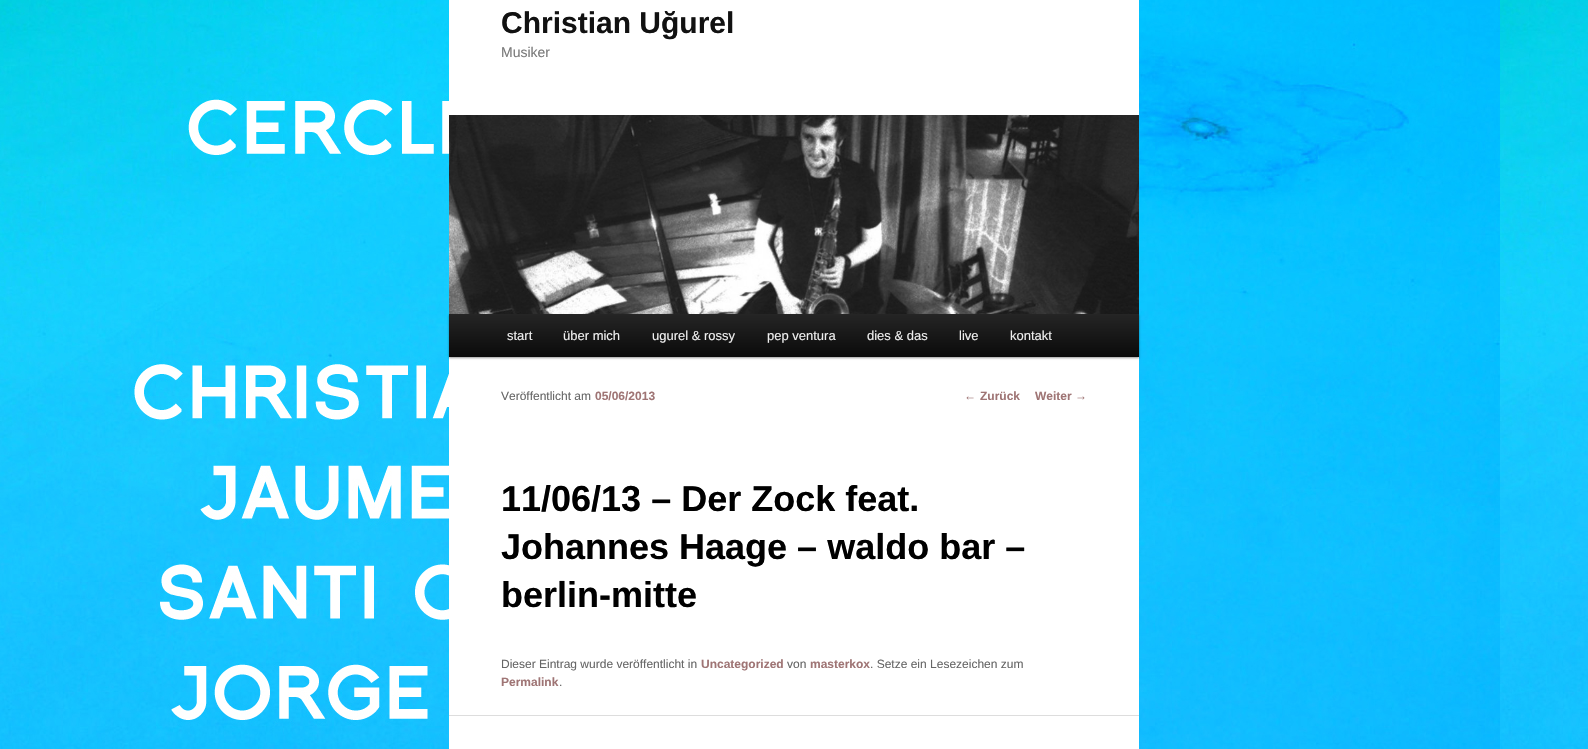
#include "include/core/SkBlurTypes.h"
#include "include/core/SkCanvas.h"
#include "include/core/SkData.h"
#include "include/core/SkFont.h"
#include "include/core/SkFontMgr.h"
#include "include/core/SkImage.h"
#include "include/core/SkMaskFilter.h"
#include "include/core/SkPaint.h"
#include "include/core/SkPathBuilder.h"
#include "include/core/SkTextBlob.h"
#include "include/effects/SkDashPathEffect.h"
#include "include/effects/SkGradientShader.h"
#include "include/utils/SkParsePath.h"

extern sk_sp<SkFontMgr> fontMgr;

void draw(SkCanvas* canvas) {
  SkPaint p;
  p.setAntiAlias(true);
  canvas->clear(SK_ColorWHITE);
  canvas->drawImageRect(SkImages::DeferredFromEncodedData(SkData::MakeFromFileName("images/1.png")), SkRect::MakeLTRB(0, 0, 1588, 749), SkSamplingOptions());
  p.setColor(SK_ColorWHITE);
  canvas->drawRect(SkRect::MakeLTRB(449, 0, 1139, 749), p);
  p.setColor(SkColorSetARGB(102, 0, 0, 0));
  p.setMaskFilter(SkMaskFilter::MakeBlur(kNormal_SkBlurStyle, 1));
  canvas->drawRect(SkRect::MakeLTRB(449, 315, 1139, 358), p);
  p.setMaskFilter(nullptr);
  canvas->drawImageRect(SkImages::DeferredFromEncodedData(SkData::MakeFromFileName("images/2.png")), SkRect::MakeLTRB(449, 115, 1139, 314), SkSamplingOptions());
  {
    const SkColor colors[] = {SkColorSetRGB(37, 37, 37), SkColorSetRGB(10, 10, 10)};
    const float stops[] = {0, 1};
    const SkPoint ends[] = {{794, 314}, {794, 357}};
    p.setShader(SkGradientShader::MakeLinear(ends, colors, stops, 2, SkTileMode::kClamp));
    p.setAlpha(255);
  }
  canvas->drawRect(SkRect::MakeLTRB(449, 314, 1139, 357), p);
  p.setShader(nullptr);
  p.setColor(SkColorSetRGB(221, 221, 221));
  canvas->drawRect(SkRect::MakeLTRB(449, 715, 1139, 716), p);
  SkFont font1(fontMgr->matchFamilyStyle("Liberation Sans", SkFontStyle::Bold()), 30);
  font1.setSubpixel(true);
  p.setColor(SkColorSetRGB(17, 17, 17));
  canvas->drawString("Christian Uğurel", 501, 33, font1, p);
  SkFont font2(fontMgr->matchFamilyStyle("Liberation Sans", SkFontStyle::Normal()), 14);
  font2.setSubpixel(true);
  p.setColor(SkColorSetRGB(122, 122, 122));
  canvas->drawString("Musiker", 501, 57, font2, p);
  SkFont font3(fontMgr->matchFamilyStyle("Liberation Sans", SkFontStyle::Normal()), 13);
  font3.setSubpixel(true);
  p.setColor(SkColorSetRGB(238, 238, 238));
  canvas->drawString("start", 507, 340, font3, p);
  canvas->drawString("über mich", 563, 340, font3, p);
  canvas->drawString("ugurel & rossy", 652, 340, font3, p);
  canvas->drawString("pep ventura", 767, 340, font3, p);
  canvas->drawString("dies & das", 867, 340, font3, p);
  canvas->drawString("live", 959, 340, font3, p);
  canvas->drawString("kontakt", 1010, 340, font3, p);
  SkFont font4(fontMgr->matchFamilyStyle("Liberation Sans", SkFontStyle::Normal()), 12);
  font4.setSubpixel(true);
  p.setColor(SkColorSetRGB(102, 102, 102));
  canvas->drawString("Veröffentlicht am", 501, 400, font4, p);
  SkFont font5(fontMgr->matchFamilyStyle("Liberation Sans", SkFontStyle::Bold()), 12);
  font5.setSubpixel(true);
  p.setColor(SkColorSetRGB(159, 117, 117));
  canvas->drawString("05/06/2013", 595, 400, font5, p);
  SkFont font6(fontMgr->matchFamilyStyle("Liberation Sans", SkFontStyle::Bold()), 36);
  font6.setSubpixel(true);
  p.setColor(SK_ColorBLACK);
  canvas->drawString("11/06/13 – Der Zock feat.", 501, 511, font6, p);
  canvas->drawString("Johannes Haage – waldo bar –", 501, 559, font6, p);
  canvas->drawString("berlin-mitte", 501, 607, font6, p);
  p.setColor(SkColorSetRGB(102, 102, 102));
  canvas->drawString("Dieser Eintrag wurde veröffentlicht in", 501, 668, font4, p);
  p.setColor(SkColorSetRGB(159, 117, 117));
  canvas->drawString("Uncategorized", 701, 668, font5, p);
  p.setColor(SkColorSetRGB(102, 102, 102));
  canvas->drawString("von", 787, 668, font4, p);
  p.setColor(SkColorSetRGB(159, 117, 117));
  canvas->drawString("masterkox", 810, 668, font5, p);
  p.setColor(SkColorSetRGB(102, 102, 102));
  canvas->drawString(". Setze ein Lesezeichen zum", 870, 668, font4, p);
  p.setColor(SkColorSetRGB(159, 117, 117));
  canvas->drawString("Permalink", 501, 686, font5, p);
  p.setColor(SkColorSetRGB(102, 102, 102));
  canvas->drawString(".", 559, 686, font4, p);
  p.setColor(SkColorSetRGB(159, 117, 117));
  canvas->drawString("←", 964, 400, font4, p);
  canvas->drawString("Zurück", 980, 400, font5, p);
  canvas->drawString("Weiter", 1035, 400, font5, p);
  canvas->drawString("→", 1075, 400, font4, p);
}
